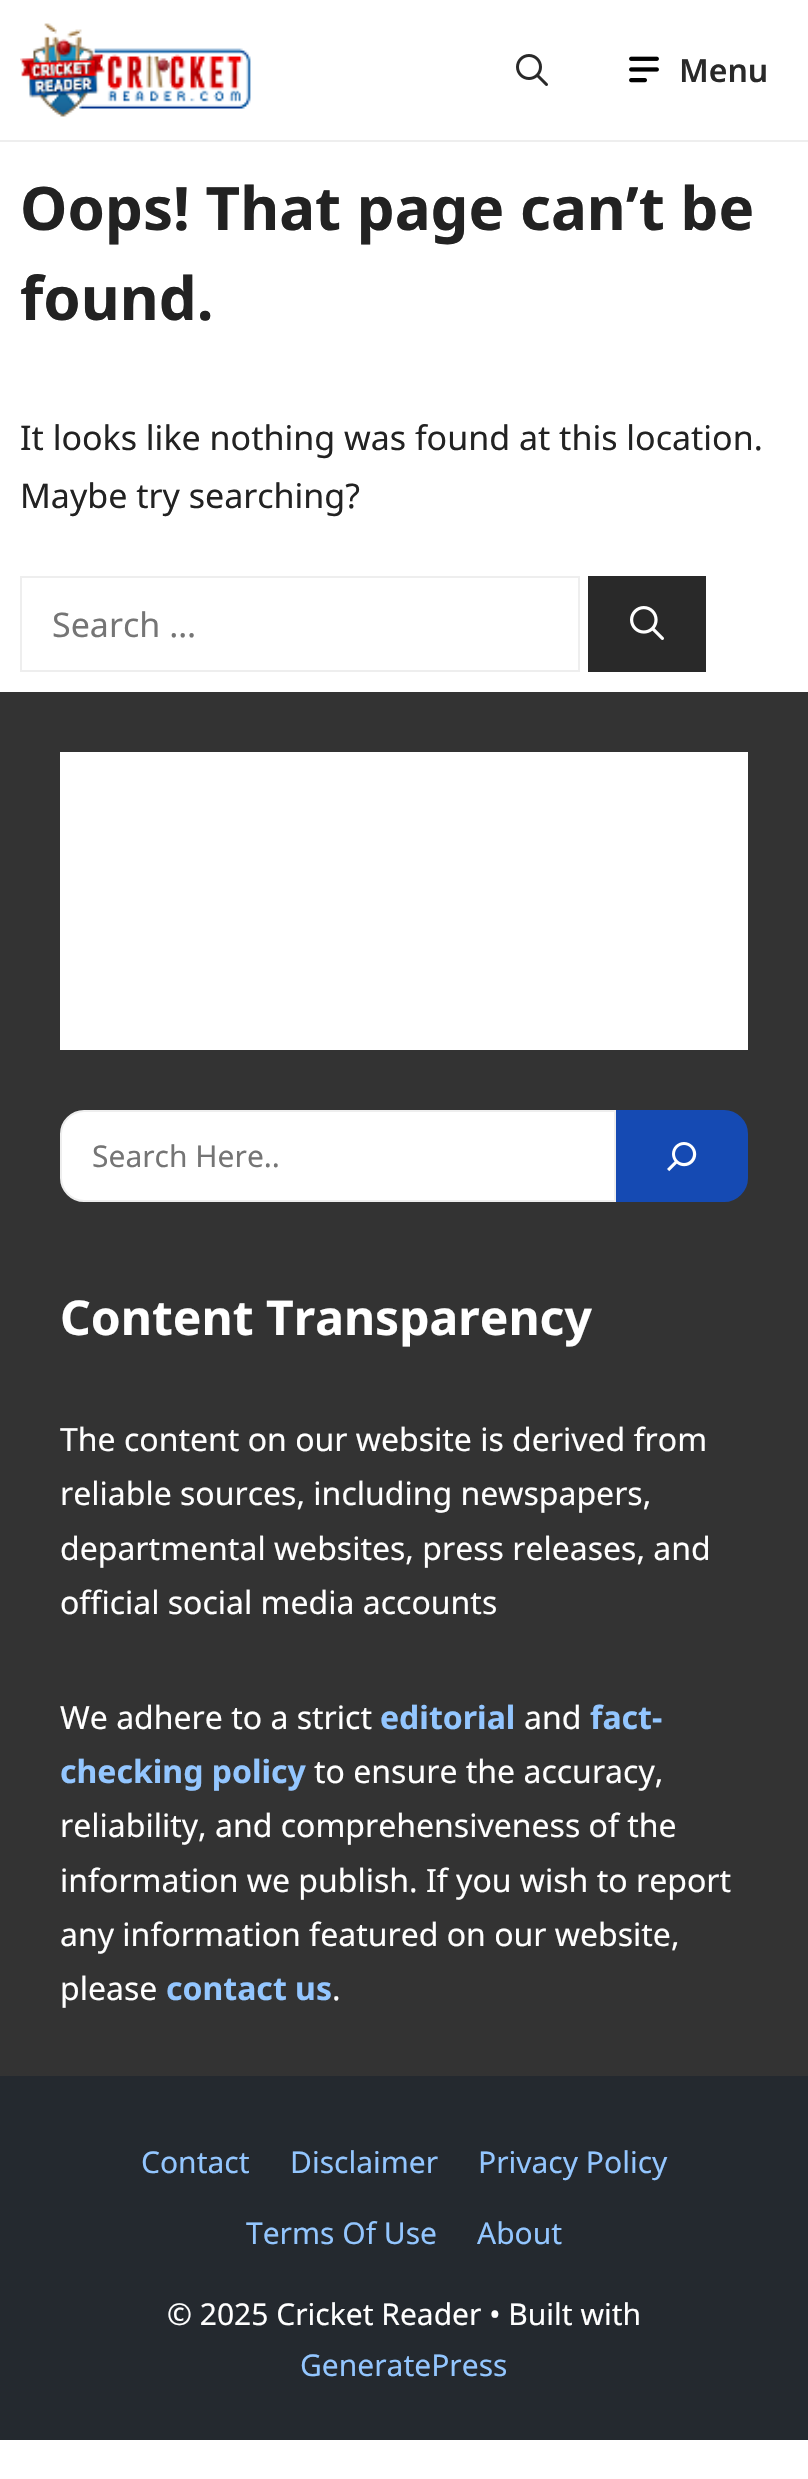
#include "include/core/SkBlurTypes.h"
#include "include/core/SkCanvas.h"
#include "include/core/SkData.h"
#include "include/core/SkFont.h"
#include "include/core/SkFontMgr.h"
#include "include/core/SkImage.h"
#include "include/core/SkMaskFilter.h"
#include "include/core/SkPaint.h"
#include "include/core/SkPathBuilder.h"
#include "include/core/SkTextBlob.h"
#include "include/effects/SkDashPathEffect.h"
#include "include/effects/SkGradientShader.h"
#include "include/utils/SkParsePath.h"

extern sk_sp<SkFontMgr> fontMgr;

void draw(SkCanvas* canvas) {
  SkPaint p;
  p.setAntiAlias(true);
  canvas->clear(SK_ColorWHITE);
  p.setColor(SkColorSetRGB(238, 238, 238));
  canvas->drawRect(SkRect::MakeLTRB(0, 140, 808, 142), p);
  canvas->drawImageRect(SkImages::DeferredFromEncodedData(SkData::MakeFromFileName("images/1.png")), SkRect::MakeLTRB(20, 23, 251, 117), SkSamplingOptions());
  canvas->drawImageRect(SkImages::DeferredFromEncodedData(SkData::MakeFromFileName("images/2.png")), SkRect::MakeLTRB(516, 54, 548, 86), SkSamplingOptions());
  canvas->drawImageRect(SkImages::DeferredFromEncodedData(SkData::MakeFromFileName("images/3.png")), SkRect::MakeLTRB(629, 56, 659, 83), SkSamplingOptions());
  p.setStyle(SkPaint::kStroke_Style);
  p.setStrokeWidth(2);
  canvas->drawRect(SkRect::MakeLTRB(21, 577, 579, 671), p);
  p.setStyle(SkPaint::kFill_Style);
  p.setColor(SkColorSetRGB(41, 41, 41));
  canvas->drawRect(SkRect::MakeLTRB(588, 576, 706, 672), p);
  canvas->drawImageRect(SkImages::DeferredFromEncodedData(SkData::MakeFromFileName("images/4.png")), SkRect::MakeLTRB(630, 606, 664, 640), SkSamplingOptions());
  p.setColor(SkColorSetRGB(51, 51, 51));
  canvas->drawRect(SkRect::MakeLTRB(0, 692, 808, 2076), p);
  p.setColor(SK_ColorWHITE);
  canvas->drawRect(SkRect::MakeLTRB(60, 752, 748, 1050), p);
  canvas->drawPath(SkPathBuilder().moveTo(84, 1111).lineTo(615, 1111).lineTo(615, 1201).lineTo(84, 1201).cubicTo(71.5f, 1201, 61, 1190.5f, 61, 1178).lineTo(61, 1134).cubicTo(61, 1121.5f, 71.5f, 1111, 84, 1111).close().detach(), p);
  p.setStyle(SkPaint::kStroke_Style);
  p.setColor(SkColorSetRGB(238, 238, 238));
  canvas->drawPath(SkPathBuilder().moveTo(84, 1111).lineTo(615, 1111).lineTo(615, 1201).lineTo(84, 1201).cubicTo(71.5f, 1201, 61, 1190.5f, 61, 1178).lineTo(61, 1134).cubicTo(61, 1121.5f, 71.5f, 1111, 84, 1111).close().detach(), p);
  p.setStyle(SkPaint::kFill_Style);
  p.setColor(SkColorSetRGB(21, 74, 179));
  canvas->drawPath(SkPathBuilder().moveTo(617, 1111).lineTo(724, 1111).cubicTo(736.5f, 1111, 747, 1121.5f, 747, 1134).lineTo(747, 1178).cubicTo(747, 1190.5f, 736.5f, 1201, 724, 1201).lineTo(617, 1201).close().detach(), p);
  p.setStyle(SkPaint::kStroke_Style);
  canvas->drawPath(SkPathBuilder().moveTo(617, 1111).lineTo(724, 1111).cubicTo(736.5f, 1111, 747, 1121.5f, 747, 1134).lineTo(747, 1178).cubicTo(747, 1190.5f, 736.5f, 1201, 724, 1201).lineTo(617, 1201).close().detach(), p);
  canvas->drawImageRect(SkImages::DeferredFromEncodedData(SkData::MakeFromFileName("images/5.png")), SkRect::MakeLTRB(667, 1142, 697, 1172), SkSamplingOptions());
  p.setStyle(SkPaint::kFill_Style);
  p.setColor(SkColorSetRGB(36, 41, 47));
  canvas->drawRect(SkRect::MakeLTRB(0, 2076, 808, 2440), p);
  SkFont font1(fontMgr->matchFamilyStyle("Noto Sans", SkFontStyle(600, SkFontStyle::kNormal_Width, SkFontStyle::kUpright_Slant)), 32);
  font1.setSubpixel(true);
  p.setColor(SkColorSetRGB(41, 41, 41));
  canvas->drawString("Menu", 679, 82, font1, p);
  SkFont font2(fontMgr->matchFamilyStyle("Noto Sans", SkFontStyle::Bold()), 60);
  font2.setSubpixel(true);
  p.setColor(SkColorSetRGB(34, 34, 34));
  canvas->drawString("Oops! That page can’t be", 20, 230, font2, p);
  canvas->drawString("found.", 20, 320, font2, p);
  SkFont font3(fontMgr->matchFamilyStyle("Noto Sans", SkFontStyle::Normal()), 34);
  font3.setSubpixel(true);
  canvas->drawString("It looks like nothing was found at this location.", 20, 450, font3, p);
  canvas->drawString("Maybe try searching?", 20, 508, font3, p);
  p.setColor(SkColorSetRGB(117, 117, 117));
  canvas->drawString("Search …", 52, 637, font3, p);
  SkFont font4(fontMgr->matchFamilyStyle("Noto Sans", SkFontStyle::Normal()), 30);
  font4.setSubpixel(true);
  canvas->drawString("Search Here..", 92, 1167, font4, p);
  SkFont font5(fontMgr->matchFamilyStyle("Noto Sans", SkFontStyle::Bold()), 48);
  font5.setSubpixel(true);
  p.setColor(SK_ColorWHITE);
  canvas->drawString("Content Transparency", 60, 1335, font5, p);
  SkFont font6(fontMgr->matchFamilyStyle("Noto Sans", SkFontStyle::Normal()), 32);
  font6.setSubpixel(true);
  canvas->drawString("The content on our website is derived from", 60, 1451, font6, p);
  canvas->drawString("reliable sources, including newspapers,", 60, 1505, font6, p);
  canvas->drawString("departmental websites, press releases, and", 60, 1560, font6, p);
  canvas->drawString("official social media accounts", 60, 1614, font6, p);
  canvas->drawString("We adhere to a strict", 60, 1729, font6, p);
  SkFont font7(fontMgr->matchFamilyStyle("Noto Sans", SkFontStyle::Bold()), 32);
  font7.setSubpixel(true);
  p.setColor(SkColorSetRGB(147, 198, 255));
  canvas->drawString("editorial", 380, 1729, font7, p);
  p.setColor(SK_ColorWHITE);
  canvas->drawString("and", 524, 1729, font6, p);
  p.setColor(SkColorSetRGB(147, 198, 255));
  canvas->drawString("fact-", 590, 1729, font7, p);
  canvas->drawString("checking policy", 60, 1783, font7, p);
  p.setColor(SK_ColorWHITE);
  canvas->drawString("to ensure the accuracy,", 314, 1783, font6, p);
  canvas->drawString("reliability, and comprehensiveness of the", 60, 1837, font6, p);
  canvas->drawString("information we publish. If you wish to report", 60, 1892, font6, p);
  canvas->drawString("any information featured on our website,", 60, 1946, font6, p);
  canvas->drawString("please", 60, 2000, font6, p);
  p.setColor(SkColorSetRGB(147, 198, 255));
  canvas->drawString("contact us", 166, 2000, font7, p);
  p.setColor(SK_ColorWHITE);
  canvas->drawString(".", 332, 2000, font6, p);
  p.setColor(SkColorSetRGB(147, 198, 255));
  canvas->drawString("Contact", 141, 2173, font4, p);
  canvas->drawString("Disclaimer", 290, 2173, font4, p);
  canvas->drawString("Privacy Policy", 478, 2173, font4, p);
  canvas->drawString("Terms Of Use", 246, 2244, font4, p);
  canvas->drawString("About", 477, 2244, font4, p);
  p.setColor(SK_ColorWHITE);
  canvas->drawString("© 2025 Cricket Reader • Built with", 167, 2325, font4, p);
  p.setColor(SkColorSetRGB(147, 198, 255));
  canvas->drawString("GeneratePress", 300, 2376, font4, p);
}
